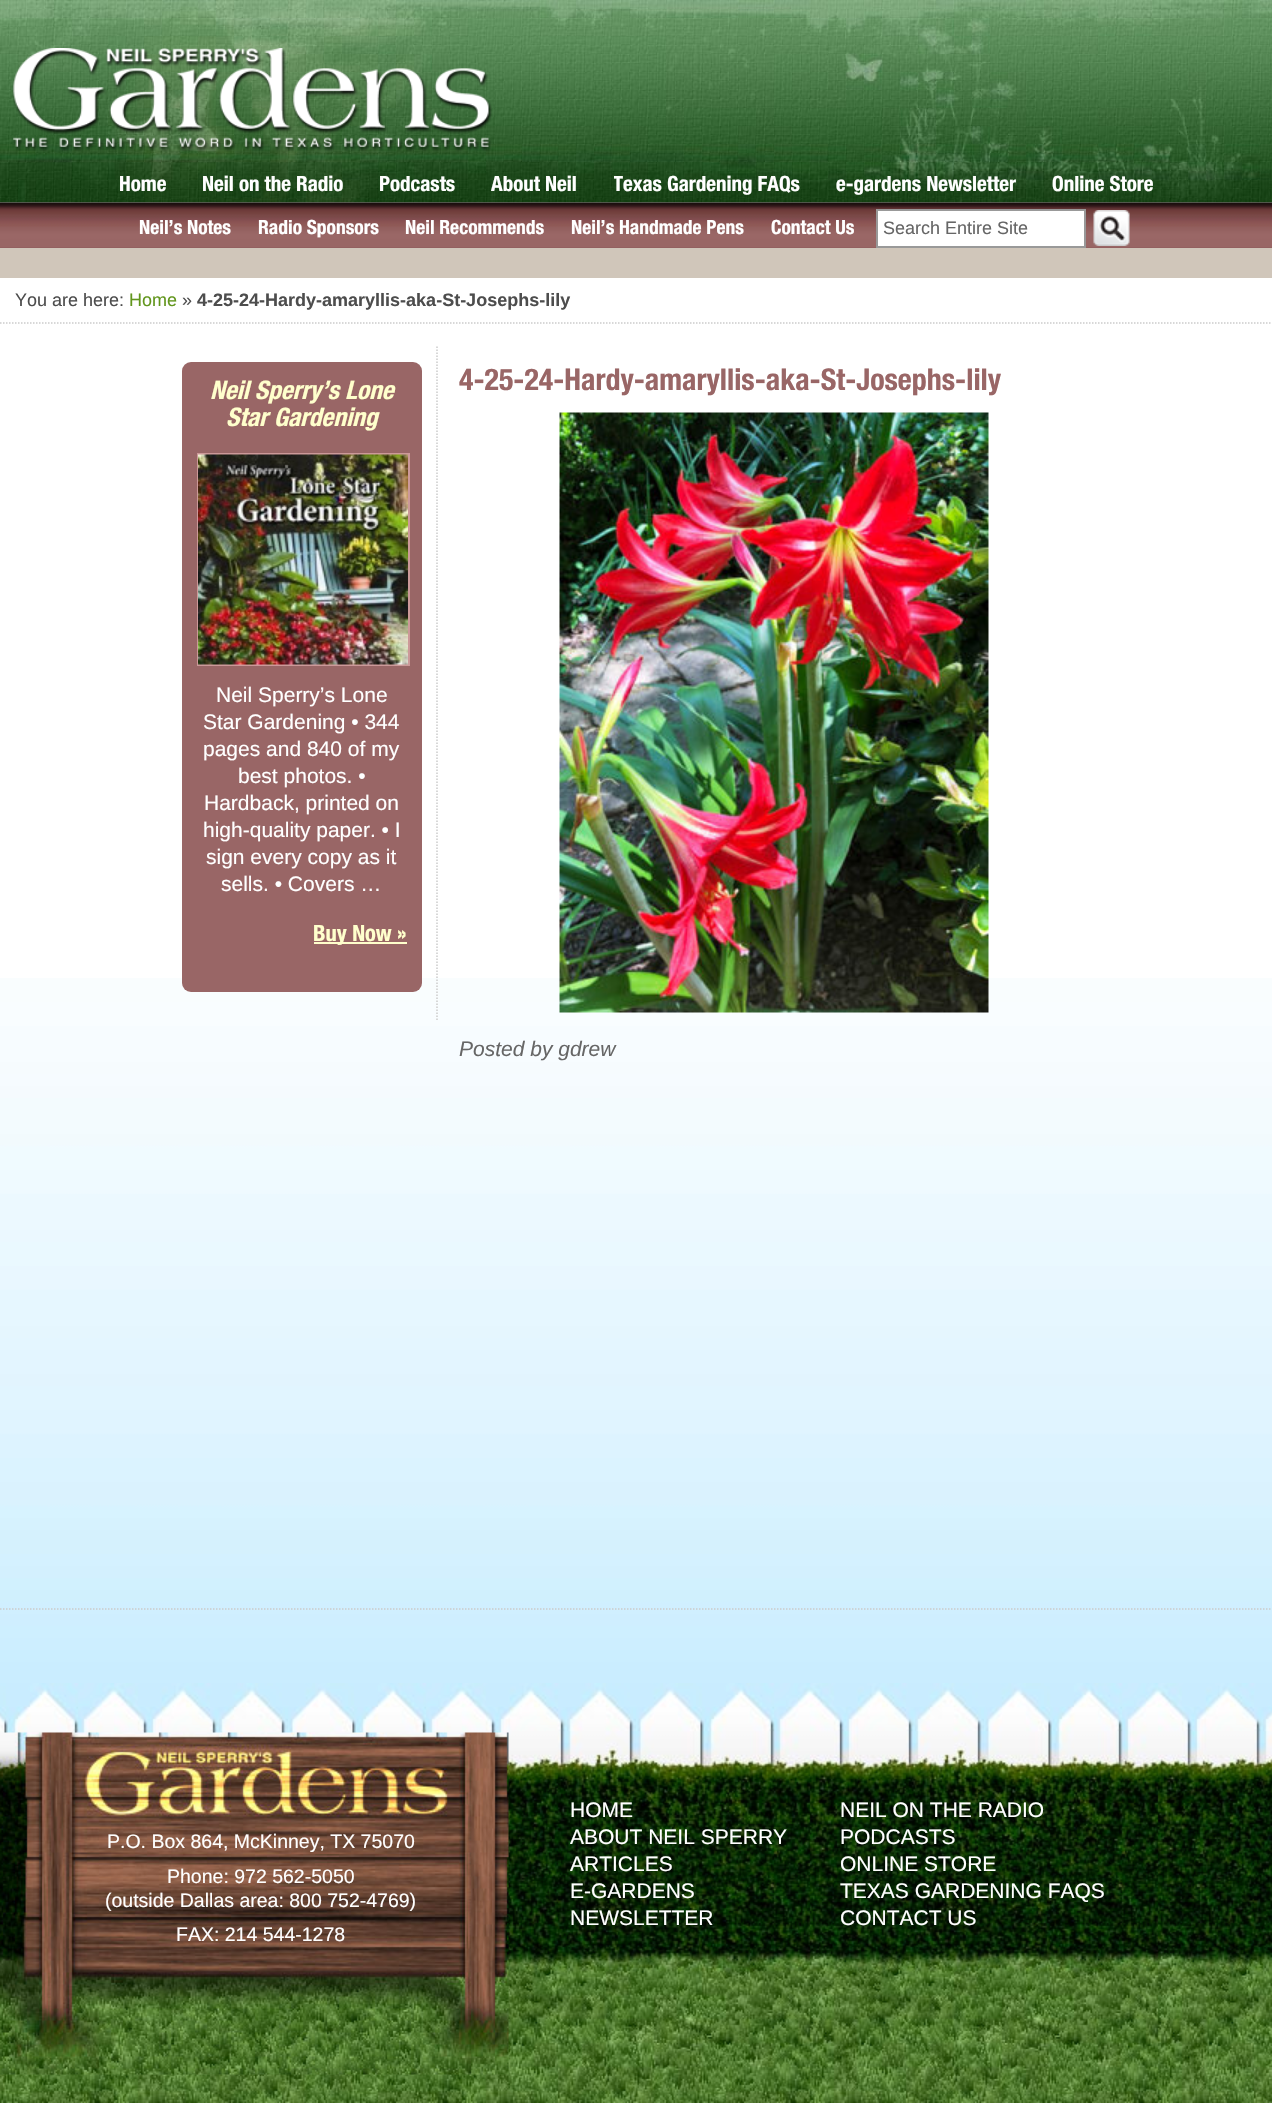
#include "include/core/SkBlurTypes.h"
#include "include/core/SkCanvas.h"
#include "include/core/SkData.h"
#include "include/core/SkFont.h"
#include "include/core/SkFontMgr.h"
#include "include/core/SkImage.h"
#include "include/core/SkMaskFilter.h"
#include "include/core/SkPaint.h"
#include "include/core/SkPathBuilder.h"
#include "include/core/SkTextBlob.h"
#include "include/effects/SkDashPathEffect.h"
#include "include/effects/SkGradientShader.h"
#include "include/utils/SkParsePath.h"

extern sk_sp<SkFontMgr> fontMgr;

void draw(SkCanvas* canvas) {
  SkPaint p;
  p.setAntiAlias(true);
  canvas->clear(SK_ColorWHITE);
  canvas->drawImageRect(SkImages::DeferredFromEncodedData(SkData::MakeFromFileName("images/1.png")), SkRect::MakeLTRB(0, 978, 1272, 1683), SkSamplingOptions());
  canvas->drawImageRect(SkImages::DeferredFromEncodedData(SkData::MakeFromFileName("images/2.png")), SkRect::MakeLTRB(0, 0, 1272, 203), SkSamplingOptions());
  canvas->drawImageRect(SkImages::DeferredFromEncodedData(SkData::MakeFromFileName("images/3.png")), SkRect::MakeLTRB(12, 48, 492, 152), SkSamplingOptions());
  p.setColor(SkColorSetRGB(147, 96, 96));
  canvas->drawRect(SkRect::MakeLTRB(0, 247, 1272, 248), p);
  canvas->drawImageRect(SkImages::DeferredFromEncodedData(SkData::MakeFromFileName("images/4.png")), SkRect::MakeLTRB(0, 202, 1272, 247), SkSamplingOptions());
  p.setColor(SK_ColorWHITE);
  canvas->drawRect(SkRect::MakeLTRB(877, 210, 1085, 247), p);
  p.setStyle(SkPaint::kStroke_Style);
  p.setStrokeWidth(2);
  p.setColor(SkColorSetRGB(153, 153, 153));
  canvas->drawRect(SkRect::MakeLTRB(877, 210, 1085, 247), p);
  canvas->drawImageRect(SkImages::DeferredFromEncodedData(SkData::MakeFromFileName("images/5.png")), SkRect::MakeLTRB(1093, 210, 1130, 246), SkSamplingOptions());
  p.setStyle(SkPaint::kFill_Style);
  p.setColor(SkColorSetRGB(208, 198, 186));
  canvas->drawRect(SkRect::MakeLTRB(0, 248, 1272, 278), p);
  p.setStyle(SkPaint::kStroke_Style);
  p.setStrokeWidth(1.5f);
  p.setColor(SkColorSetRGB(204, 204, 204));
  p.setPathEffect(SkDashPathEffect::Make({{1.5f, 1.5f}}, 0));
  canvas->drawPath(SkPathBuilder().moveTo(0, 323).lineTo(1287, 323).detach(), p);
  p.setPathEffect(nullptr);
  p.setPathEffect(SkDashPathEffect::Make({{1.5f, 1.5f}}, 0));
  canvas->drawPath(SkPathBuilder().moveTo(0, 1609).lineTo(1272, 1609).detach(), p);
  p.setPathEffect(nullptr);
  p.setPathEffect(SkDashPathEffect::Make({{1.5f, 1.5f}}, 0));
  canvas->drawPath(SkPathBuilder().moveTo(437, 346.5f).lineTo(437, 1021.5f).detach(), p);
  p.setPathEffect(nullptr);
  p.setStyle(SkPaint::kFill_Style);
  p.setColor(SkColorSetRGB(153, 102, 102));
  canvas->drawRoundRect(SkRect::MakeLTRB(182, 362, 422, 992), 9, 9, p);
  p.setStyle(SkPaint::kStroke_Style);
  p.setStrokeWidth(2);
  p.setColor(SkColorSetRGB(204, 153, 153));
  canvas->drawRect(SkRect::MakeLTRB(198, 454, 409, 665), p);
  canvas->drawImageRect(SkImages::DeferredFromEncodedData(SkData::MakeFromFileName("images/6.png")), SkRect::MakeLTRB(198, 454, 408, 665), SkSamplingOptions());
  p.setStyle(SkPaint::kFill_Style);
  p.setColor(SkColorSetRGB(255, 255, 204));
  canvas->drawRect(SkRect::MakeLTRB(314, 942, 407, 944), p);
  canvas->drawImageRect(SkImages::DeferredFromEncodedData(SkData::MakeFromFileName("images/7.png")), SkRect::MakeLTRB(559, 412, 989, 1013), SkSamplingOptions());
  canvas->drawImageRect(SkImages::DeferredFromEncodedData(SkData::MakeFromFileName("images/8.png")), SkRect::MakeLTRB(0, 1683, 1272, 2103), SkSamplingOptions());
  canvas->drawImageRect(SkImages::DeferredFromEncodedData(SkData::MakeFromFileName("images/9.png")), SkRect::MakeLTRB(0, 1732, 509, 2075), SkSamplingOptions());
  SkFont font1(fontMgr->matchFamilyStyle("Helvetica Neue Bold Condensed", SkFontStyle::Bold()), 21);
  font1.setSubpixel(true);
  p.setColor(SK_ColorWHITE);
  canvas->drawString("Home", 119, 191, font1, p);
  canvas->drawString("Neil on the Radio", 202, 191, font1, p);
  canvas->drawString("Podcasts", 379, 191, font1, p);
  canvas->drawString("About Neil", 491, 191, font1, p);
  canvas->save();
  canvas->clipRect(SkRect::MakeLTRB(614, 164, 800, 203));
  canvas->drawString("Texas Gardening FAQs", 613, 191, font1, p);
  canvas->restore();
  canvas->drawString("e-gardens Newsletter", 836, 191, font1, p);
  canvas->drawString("Online Store", 1052, 191, font1, p);
  SkFont font2(fontMgr->matchFamilyStyle("Helvetica Neue Bold Condensed", SkFontStyle::Bold()), 19.5f);
  font2.setSubpixel(true);
  canvas->drawString("Neil’s Notes", 139, 234, font2, p);
  canvas->drawString("Radio Sponsors", 258, 234, font2, p);
  canvas->drawString("Neil Recommends", 405, 234, font2, p);
  canvas->drawString("Neil’s Handmade Pens", 571, 234, font2, p);
  canvas->drawString("Contact Us", 771, 234, font2, p);
  SkFont font3(fontMgr->matchFamilyStyle("Liberation Sans", SkFontStyle::Normal()), 18);
  font3.setSubpixel(true);
  p.setColor(SkColorSetRGB(102, 102, 102));
  canvas->drawString("Search Entire Site", 883, 234, font3, p);
  p.setColor(SkColorSetRGB(77, 77, 77));
  canvas->drawString("You are here:", 15, 306, font3, p);
  p.setColor(SkColorSetRGB(98, 150, 29));
  canvas->drawString("Home", 129, 306, font3, p);
  p.setColor(SkColorSetRGB(77, 77, 77));
  canvas->drawString("»", 182, 306, font3, p);
  SkFont font4(fontMgr->matchFamilyStyle("Liberation Sans", SkFontStyle::Bold()), 18);
  font4.setSubpixel(true);
  canvas->drawString("4-25-24-Hardy-amaryllis-aka-St-Josephs-lily", 197, 306, font4, p);
  SkFont font5(fontMgr->matchFamilyStyle("Helvetica Neue Bold Condensed", SkFontStyle::BoldItalic()), 25.5f);
  font5.setSubpixel(true);
  p.setColor(SkColorSetRGB(255, 255, 204));
  canvas->drawString("Neil Sperry’s Lone", 210, 399, font5, p);
  canvas->drawString("Star Gardening", 226, 426, font5, p);
  SkFont font6(fontMgr->matchFamilyStyle("Liberation Sans", SkFontStyle::Normal()), 21);
  font6.setSubpixel(true);
  p.setColor(SK_ColorWHITE);
  canvas->drawString("Neil Sperry’s Lone", 216, 702, font6, p);
  canvas->drawString("Star Gardening • 344", 203, 729, font6, p);
  canvas->drawString("pages and 840 of my", 203, 756, font6, p);
  canvas->drawString("best photos. •", 238, 783, font6, p);
  canvas->drawString("Hardback, printed on", 204, 810, font6, p);
  canvas->drawString("high-quality paper. • I", 203, 837, font6, p);
  canvas->drawString("sign every copy as it", 206, 864, font6, p);
  canvas->drawString("sells. • Covers …", 221, 891, font6, p);
  SkFont font7(fontMgr->matchFamilyStyle("Helvetica Neue Bold Condensed", SkFontStyle::Bold()), 22.5f);
  font7.setSubpixel(true);
  p.setColor(SkColorSetRGB(255, 255, 204));
  canvas->drawString("Buy Now »", 313, 941, font7, p);
  SkFont font8(fontMgr->matchFamilyStyle("Helvetica Neue Bold Condensed", SkFontStyle::Bold()), 30);
  font8.setSubpixel(true);
  p.setColor(SkColorSetRGB(153, 102, 102));
  canvas->drawString("4-25-24-Hardy-amaryllis-aka-St-Josephs-lily", 459, 390, font8, p);
  SkFont font9(fontMgr->matchFamilyStyle("Liberation Sans", SkFontStyle::Italic()), 21);
  font9.setSubpixel(true);
  p.setColor(SkColorSetRGB(102, 102, 102));
  canvas->drawString("Posted by gdrew", 459, 1056, font9, p);
  SkFont font10(fontMgr->matchFamilyStyle("Liberation Sans", SkFontStyle::Normal()), 19.5f);
  font10.setSubpixel(true);
  p.setColor(SK_ColorWHITE);
  canvas->drawString("P.O. Box 864, McKinney, TX 75070", 107, 1848, font10, p);
  canvas->drawString("Phone: 972 562-5050", 167, 1883, font10, p);
  canvas->drawString("(outside Dallas area: 800 752-4769)", 105, 1907, font10, p);
  canvas->drawString("FAX: 214 544-1278", 176, 1941, font10, p);
  canvas->drawString("HOME", 570, 1817, font6, p);
  canvas->drawString("ABOUT NEIL SPERRY", 570, 1844, font6, p);
  canvas->drawString("ARTICLES", 570, 1871, font6, p);
  canvas->drawString("E-GARDENS", 570, 1898, font6, p);
  canvas->drawString("NEWSLETTER", 570, 1925, font6, p);
  canvas->drawString("NEIL ON THE RADIO", 840, 1817, font6, p);
  canvas->drawString("PODCASTS", 840, 1844, font6, p);
  canvas->drawString("ONLINE STORE", 840, 1871, font6, p);
  canvas->drawString("TEXAS GARDENING FAQS", 840, 1898, font6, p);
  canvas->drawString("CONTACT US", 840, 1925, font6, p);
}
